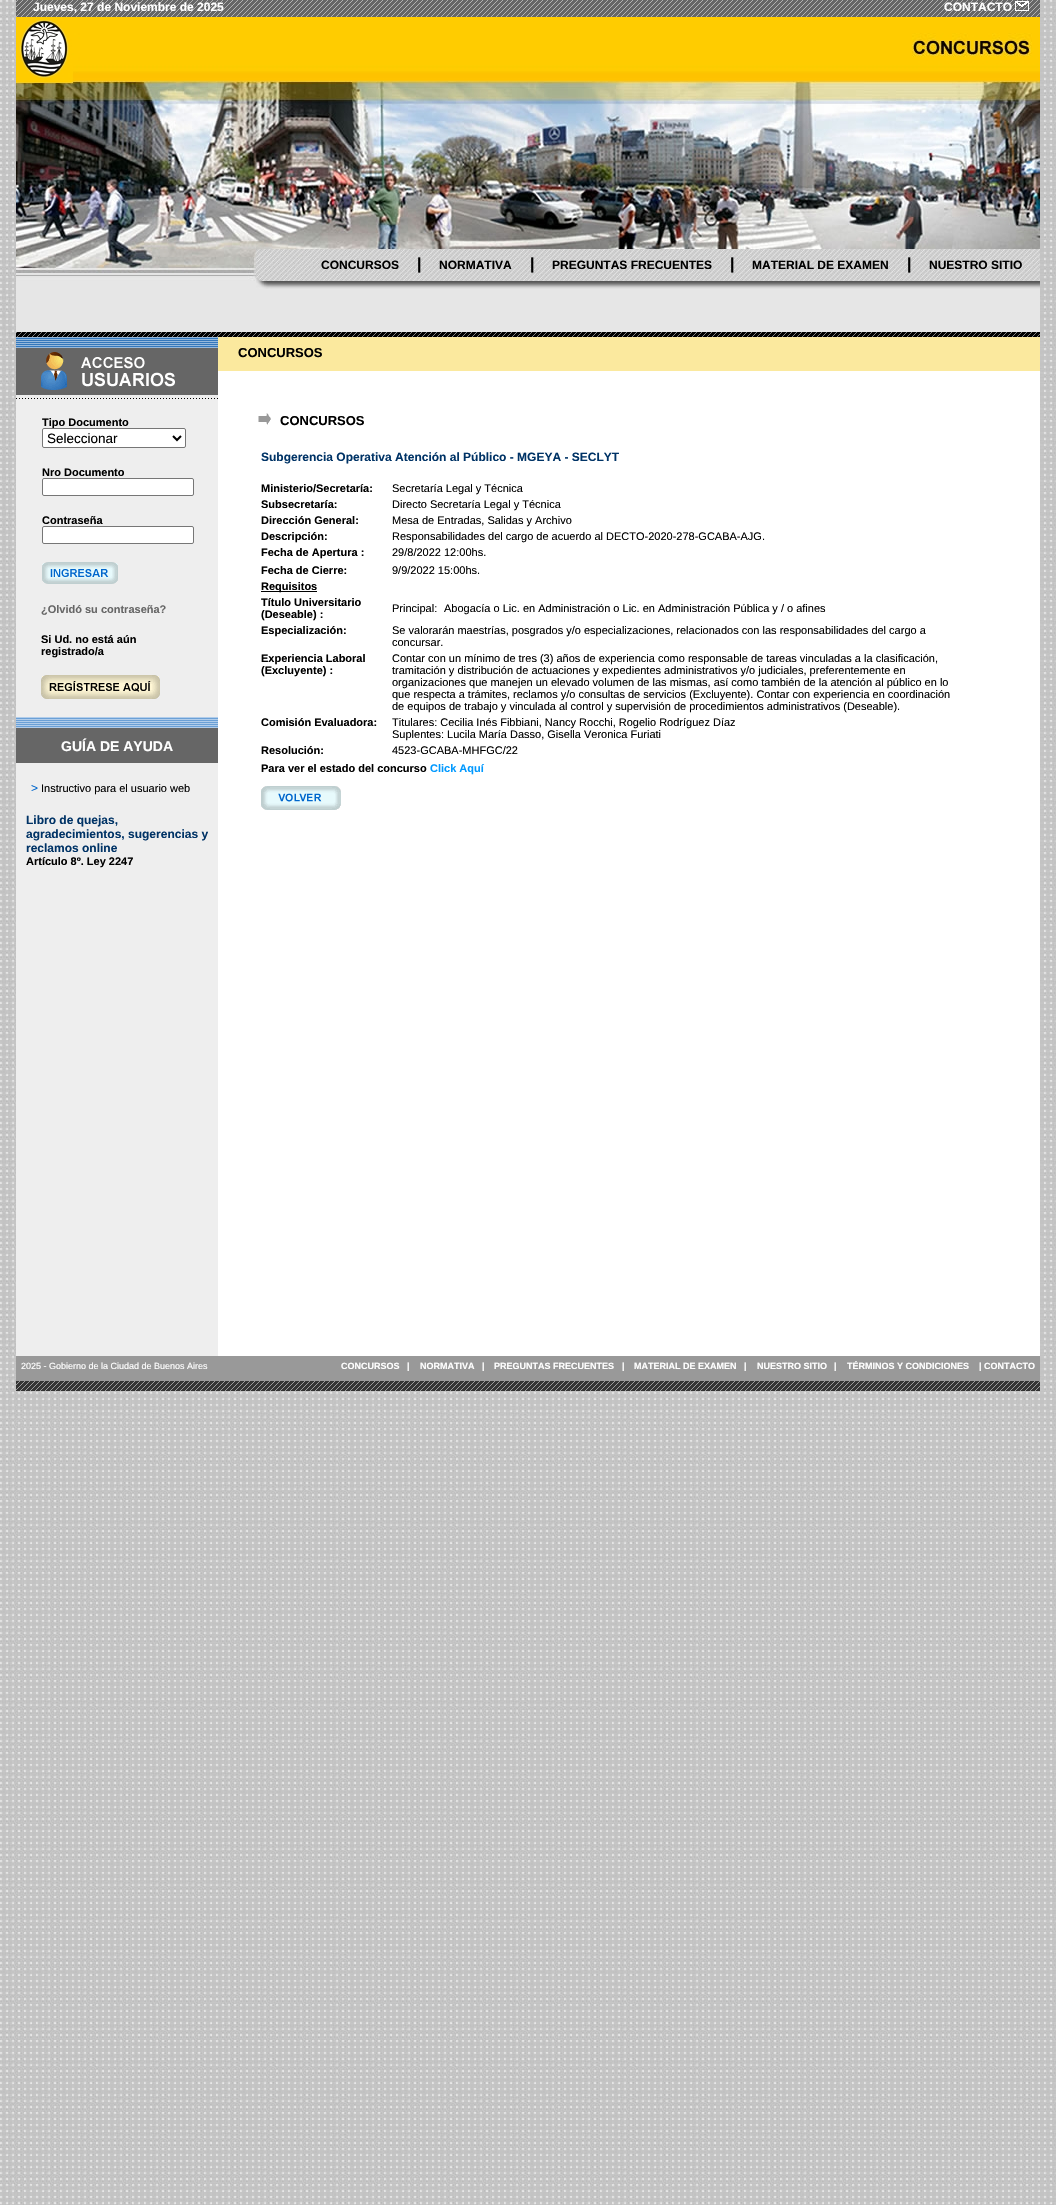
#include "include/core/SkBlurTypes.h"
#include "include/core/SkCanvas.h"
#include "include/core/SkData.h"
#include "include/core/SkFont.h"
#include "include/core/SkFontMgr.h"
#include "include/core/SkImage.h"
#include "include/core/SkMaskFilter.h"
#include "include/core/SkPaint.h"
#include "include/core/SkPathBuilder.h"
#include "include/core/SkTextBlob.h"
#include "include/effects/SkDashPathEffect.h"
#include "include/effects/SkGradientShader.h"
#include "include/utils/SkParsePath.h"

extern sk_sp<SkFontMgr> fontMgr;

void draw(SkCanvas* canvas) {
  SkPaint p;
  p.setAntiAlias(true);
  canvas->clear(SK_ColorWHITE);
  canvas->drawImageRect(SkImages::DeferredFromEncodedData(SkData::MakeFromFileName("images/1.png")), SkRect::MakeLTRB(0, 0, 1056, 2205), SkSamplingOptions());
  canvas->drawImageRect(SkImages::DeferredFromEncodedData(SkData::MakeFromFileName("images/2.png")), SkRect::MakeLTRB(16, 0, 1040, 17), SkSamplingOptions());
  canvas->drawImageRect(SkImages::DeferredFromEncodedData(SkData::MakeFromFileName("images/3.png")), SkRect::MakeLTRB(1015, 1, 1029, 11), SkSamplingOptions());
  canvas->drawImageRect(SkImages::DeferredFromEncodedData(SkData::MakeFromFileName("images/4.png")), SkRect::MakeLTRB(16, 17, 1040, 297), SkSamplingOptions());
  p.setColor(SkColorSetRGB(230, 230, 230));
  canvas->drawRect(SkRect::MakeLTRB(16, 297, 1040, 332), p);
  canvas->drawImageRect(SkImages::DeferredFromEncodedData(SkData::MakeFromFileName("images/5.png")), SkRect::MakeLTRB(16, 332, 1040, 337), SkSamplingOptions());
  p.setColor(SkColorSetRGB(238, 238, 238));
  canvas->drawRect(SkRect::MakeLTRB(16, 399, 218, 1356), p);
  canvas->drawImageRect(SkImages::DeferredFromEncodedData(SkData::MakeFromFileName("images/6.png")), SkRect::MakeLTRB(16, 337, 218, 348), SkSamplingOptions());
  p.setColor(SkColorSetRGB(102, 102, 102));
  canvas->drawRect(SkRect::MakeLTRB(16, 348, 218, 352), p);
  canvas->drawImageRect(SkImages::DeferredFromEncodedData(SkData::MakeFromFileName("images/7.png")), SkRect::MakeLTRB(16, 352, 218, 399), SkSamplingOptions());
  p.setColor(SK_ColorWHITE);
  canvas->drawRoundRect(SkRect::MakeLTRB(42.5f, 478.5f, 193.5f, 495.5f), 1.5f, 1.5f, p);
  p.setStyle(SkPaint::kStroke_Style);
  p.setStrokeWidth(1);
  p.setColor(SkColorSetRGB(118, 118, 118));
  canvas->drawRoundRect(SkRect::MakeLTRB(42.5f, 478.5f, 193.5f, 495.5f), 1.5f, 1.5f, p);
  p.setStyle(SkPaint::kFill_Style);
  p.setColor(SK_ColorWHITE);
  canvas->drawRoundRect(SkRect::MakeLTRB(42.5f, 526.5f, 193.5f, 543.5f), 1.5f, 1.5f, p);
  p.setStyle(SkPaint::kStroke_Style);
  p.setColor(SkColorSetRGB(118, 118, 118));
  canvas->drawRoundRect(SkRect::MakeLTRB(42.5f, 526.5f, 193.5f, 543.5f), 1.5f, 1.5f, p);
  canvas->drawImageRect(SkImages::DeferredFromEncodedData(SkData::MakeFromFileName("images/8.png")), SkRect::MakeLTRB(42, 562, 118, 584), SkSamplingOptions());
  canvas->drawImageRect(SkImages::DeferredFromEncodedData(SkData::MakeFromFileName("images/9.png")), SkRect::MakeLTRB(41, 675, 160, 699), SkSamplingOptions());
  canvas->drawImageRect(SkImages::DeferredFromEncodedData(SkData::MakeFromFileName("images/10.png")), SkRect::MakeLTRB(16, 717, 218, 728), SkSamplingOptions());
  p.setStyle(SkPaint::kFill_Style);
  p.setColor(SkColorSetRGB(102, 102, 102));
  canvas->drawRect(SkRect::MakeLTRB(16, 728, 218, 763), p);
  p.setColor(SK_ColorWHITE);
  canvas->drawRect(SkRect::MakeLTRB(218, 371, 1040, 1356), p);
  p.setColor(SkColorSetRGB(251, 233, 158));
  canvas->drawRect(SkRect::MakeLTRB(218, 337, 1040, 371), p);
  canvas->drawImageRect(SkImages::DeferredFromEncodedData(SkData::MakeFromFileName("images/11.png")), SkRect::MakeLTRB(258, 413, 271, 425), SkSamplingOptions());
  p.setColor(SK_ColorBLACK);
  canvas->drawRect(SkRect::MakeLTRB(261, 591, 317, 592), p);
  canvas->drawImageRect(SkImages::DeferredFromEncodedData(SkData::MakeFromFileName("images/12.png")), SkRect::MakeLTRB(261, 786, 341, 810), SkSamplingOptions());
  canvas->drawImageRect(SkImages::DeferredFromEncodedData(SkData::MakeFromFileName("images/13.png")), SkRect::MakeLTRB(16, 1381, 1040, 1391), SkSamplingOptions());
  p.setColor(SkColorSetRGB(153, 153, 153));
  canvas->drawRect(SkRect::MakeLTRB(16, 1356, 1040, 1381), p);
  SkFont font1(fontMgr->matchFamilyStyle("Liberation Sans", SkFontStyle::Bold()), 12);
  font1.setSubpixel(true);
  p.setColor(SK_ColorWHITE);
  canvas->drawString("Jueves, 27 de Noviembre de 2025", 33, 11, font1, p);
  canvas->drawString("CONTACTO", 944, 11, font1, p);
  p.setColor(SK_ColorBLACK);
  canvas->drawString("CONCURSOS", 321, 269, font1, p);
  SkFont font2(fontMgr->matchFamilyStyle("Liberation Sans", SkFontStyle::Bold()), 16);
  font2.setSubpixel(true);
  canvas->drawString("|", 417, 269, font2, p);
  canvas->drawString("NORMATIVA", 439, 269, font1, p);
  canvas->drawString("|", 530, 269, font2, p);
  canvas->drawString("PREGUNTAS FRECUENTES", 552, 269, font1, p);
  canvas->drawString("|", 730, 269, font2, p);
  canvas->drawString("MATERIAL DE EXAMEN", 752, 269, font1, p);
  canvas->drawString("|", 907, 269, font2, p);
  canvas->drawString("NUESTRO SITIO", 929, 269, font1, p);
  SkFont font3(fontMgr->matchFamilyStyle("Liberation Sans", SkFontStyle::Bold()), 11);
  font3.setSubpixel(true);
  canvas->drawString("Tipo Documento", 42, 426, font3, p);
  p.setColor(SK_ColorWHITE);
  canvas->drawRoundRect(SkRect::MakeLTRB(42.5f, 428.5f, 185.5f, 447.5f), 1.5f, 1.5f, p);
  p.setStyle(SkPaint::kStroke_Style);
  p.setColor(SkColorSetRGB(118, 118, 118));
  canvas->drawRoundRect(SkRect::MakeLTRB(42.5f, 428.5f, 185.5f, 447.5f), 1.5f, 1.5f, p);
  p.setStrokeWidth(2);
  p.setColor(SK_ColorBLACK);
  canvas->drawPath(SkPathBuilder().moveTo(173, 436).lineTo(177, 440).lineTo(181, 436).detach(), p);
  SkFont font4(fontMgr->matchFamilyStyle("Liberation Sans", SkFontStyle::Normal()), 13.5f);
  font4.setSubpixel(true);
  p.setStyle(SkPaint::kFill_Style);
  canvas->drawString("Seleccionar", 47, 443, font4, p);
  canvas->drawString("Nro Documento", 42, 476, font3, p);
  canvas->drawString("Contraseña", 42, 524, font3, p);
  p.setColor(SkColorSetRGB(102, 102, 102));
  canvas->drawString("¿Olvidó su contraseña?", 41, 613, font3, p);
  p.setColor(SK_ColorBLACK);
  canvas->drawString("Si Ud. no está aún", 41, 643, font3, p);
  canvas->drawString("registrado/a", 41, 655, font3, p);
  SkFont font5(fontMgr->matchFamilyStyle("Liberation Sans", SkFontStyle::Bold()), 14);
  font5.setSubpixel(true);
  p.setColor(SK_ColorWHITE);
  canvas->drawString("GUÍA DE AYUDA", 61, 751, font5, p);
  SkFont font6(fontMgr->matchFamilyStyle("Liberation Sans", SkFontStyle::Normal()), 12);
  font6.setSubpixel(true);
  p.setColor(SkColorSetRGB(0, 102, 204));
  canvas->drawString(">", 31, 792, font6, p);
  SkFont font7(fontMgr->matchFamilyStyle("Liberation Sans", SkFontStyle::Normal()), 11);
  font7.setSubpixel(true);
  p.setColor(SK_ColorBLACK);
  canvas->drawString("Instructivo para el usuario web", 41, 792, font7, p);
  p.setColor(SkColorSetRGB(0, 51, 102));
  canvas->drawString("Libro de quejas,", 26, 824, font1, p);
  canvas->drawString("agradecimientos, sugerencias y", 26, 838, font1, p);
  canvas->drawString("reclamos online", 26, 852, font1, p);
  p.setColor(SK_ColorBLACK);
  canvas->drawString("Artículo 8º. Ley 2247", 26, 865, font3, p);
  SkFont font8(fontMgr->matchFamilyStyle("Liberation Sans", SkFontStyle::Bold()), 13);
  font8.setSubpixel(true);
  canvas->drawString("CONCURSOS", 238, 357, font8, p);
  canvas->drawString("CONCURSOS", 280, 425, font8, p);
  p.setColor(SkColorSetRGB(0, 51, 102));
  canvas->drawString("Subgerencia Operativa Atención al Público - MGEYA - SECLYT", 261, 461, font1, p);
  p.setColor(SK_ColorBLACK);
  canvas->drawString("Ministerio/Secretaría:", 261, 492, font3, p);
  canvas->drawString("Secretaría Legal y Técnica", 392, 492, font7, p);
  canvas->drawString("Subsecretaría:", 261, 508, font3, p);
  canvas->drawString("Directo Secretaría Legal y Técnica", 392, 508, font7, p);
  canvas->drawString("Dirección General:", 261, 524, font3, p);
  canvas->drawString("Mesa de Entradas, Salidas y Archivo", 392, 524, font7, p);
  canvas->drawString("Descripción:", 261, 540, font3, p);
  canvas->drawString("Responsabilidades del cargo de acuerdo al DECTO-2020-278-GCABA-AJG.", 392, 540, font7, p);
  canvas->drawString("Fecha de Apertura :", 261, 556, font3, p);
  canvas->drawString("29/8/2022 12:00hs.", 392, 556, font7, p);
  canvas->drawString("Fecha de Cierre:", 261, 574, font3, p);
  canvas->drawString("9/9/2022 15:00hs.", 392, 574, font7, p);
  canvas->drawString("Requisitos", 261, 590, font3, p);
  canvas->drawString("Título Universitario", 261, 606, font3, p);
  canvas->drawString("(Deseable) :", 261, 618, font3, p);
  canvas->drawString("Principal:", 392, 612, font7, p);
  canvas->drawString("Abogacía o Lic. en Administración o Lic. en Administración Pública y / o afines", 444, 612, font7, p);
  canvas->drawString("Especialización:", 261, 634, font3, p);
  canvas->drawString("Se valorarán maestrías, posgrados y/o especializaciones, relacionados con las responsabilidades del cargo a", 392, 634, font7, p);
  canvas->drawString("concursar.", 392, 646, font7, p);
  canvas->drawString("Experiencia Laboral", 261, 662, font3, p);
  canvas->drawString("(Excluyente) :", 261, 674, font3, p);
  canvas->drawString("Contar con un mínimo de tres (3) años de experiencia como responsable de tareas vinculadas a la clasificación,", 392, 662, font7, p);
  canvas->drawString("tramitación y distribución de actuaciones y expedientes administrativos y/o judiciales, preferentemente en", 392, 674, font7, p);
  canvas->drawString("organizaciones que manejen un elevado volumen de las mismas, así como también de la atención al público en lo", 392, 686, font7, p);
  canvas->drawString("que respecta a trámites, reclamos y/o consultas de servicios (Excluyente). Contar con experiencia en coordinación", 392, 698, font7, p);
  canvas->drawString("de equipos de trabajo y vinculada al control y supervisión de procedimientos administrativos (Deseable).", 392, 710, font7, p);
  canvas->drawString("Comisión Evaluadora:", 261, 726, font3, p);
  canvas->drawString("Titulares: Cecilia Inés Fibbiani, Nancy Rocchi, Rogelio Rodríguez Díaz", 392, 726, font7, p);
  canvas->drawString("Suplentes: Lucila María Dasso, Gisella Veronica Furiati", 392, 738, font7, p);
  canvas->drawString("Resolución:", 261, 754, font3, p);
  canvas->drawString("4523-GCABA-MHFGC/22", 392, 754, font7, p);
  canvas->drawString("Para ver el estado del concurso", 261, 772, font3, p);
  p.setColor(SkColorSetRGB(0, 153, 255));
  canvas->drawString("Click Aquí", 430, 772, font3, p);
  SkFont font9(fontMgr->matchFamilyStyle("Liberation Sans", SkFontStyle::Normal()), 9);
  font9.setSubpixel(true);
  p.setColor(SK_ColorWHITE);
  canvas->drawString("2025 - Gobierno de la Ciudad de Buenos Aires", 21, 1369, font9, p);
  SkFont font10(fontMgr->matchFamilyStyle("Liberation Sans", SkFontStyle::Bold()), 9);
  font10.setSubpixel(true);
  canvas->drawString("CONCURSOS", 341, 1369, font10, p);
  canvas->drawString("|", 407, 1369, font10, p);
  canvas->drawString("NORMATIVA", 420, 1369, font10, p);
  canvas->drawString("|", 482, 1369, font10, p);
  canvas->drawString("PREGUNTAS FRECUENTES", 494, 1369, font10, p);
  canvas->drawString("|", 622, 1369, font10, p);
  canvas->drawString("MATERIAL DE EXAMEN", 634, 1369, font10, p);
  canvas->drawString("|", 744, 1369, font10, p);
  canvas->drawString("NUESTRO SITIO", 757, 1369, font10, p);
  canvas->drawString("|", 834, 1369, font10, p);
  canvas->drawString("TÉRMINOS Y CONDICIONES", 847, 1369, font10, p);
  canvas->drawString("| CONTACTO", 979, 1369, font10, p);
}
